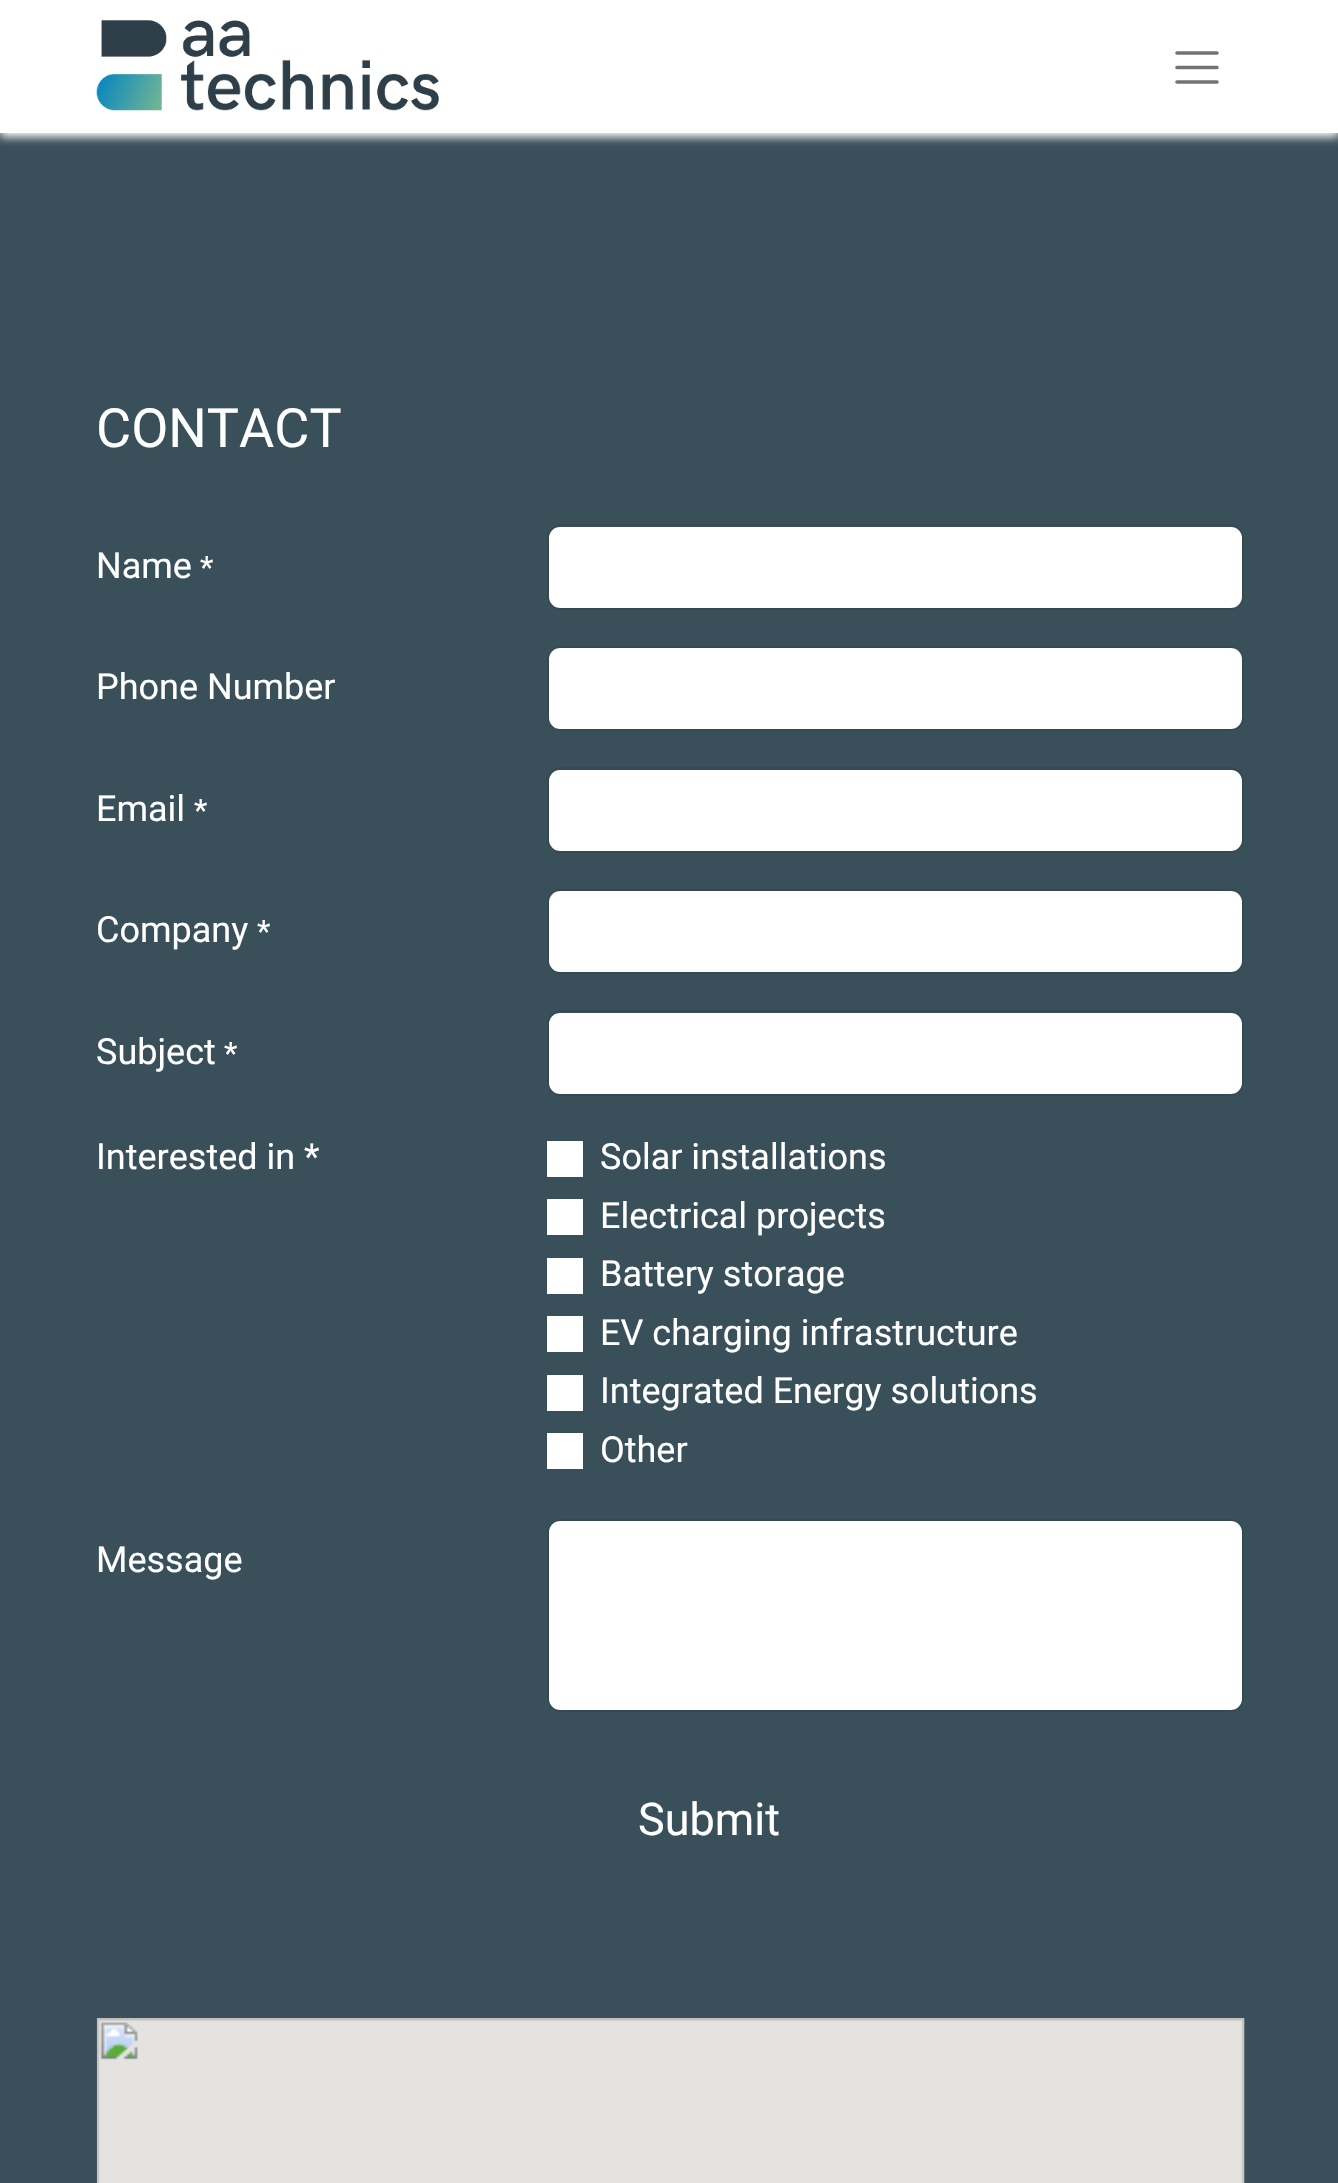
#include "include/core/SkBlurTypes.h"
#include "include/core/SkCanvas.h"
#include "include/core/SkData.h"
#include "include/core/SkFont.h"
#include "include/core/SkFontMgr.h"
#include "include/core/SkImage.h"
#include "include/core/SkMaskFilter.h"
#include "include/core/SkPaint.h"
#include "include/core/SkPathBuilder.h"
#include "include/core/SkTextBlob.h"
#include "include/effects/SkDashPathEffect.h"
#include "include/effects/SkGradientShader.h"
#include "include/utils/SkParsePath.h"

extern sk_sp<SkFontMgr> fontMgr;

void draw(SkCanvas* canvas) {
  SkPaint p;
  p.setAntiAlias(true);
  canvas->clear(SK_ColorWHITE);
  p.setColor(SkColorSetRGB(57, 79, 90));
  canvas->drawRect(SkRect::MakeLTRB(0, 133, 1338, 2183), p);
  canvas->save();
  canvas->clipPath(SkPathBuilder(SkPathFillType::kEvenOdd).moveTo(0, 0).lineTo(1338, 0).lineTo(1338, 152).lineTo(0, 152).close().moveTo(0, 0).lineTo(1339, 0).lineTo(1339, 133).lineTo(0, 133).close().detach(), true);
  p.setColor(SK_ColorWHITE);
  p.setMaskFilter(SkMaskFilter::MakeBlur(kNormal_SkBlurStyle, 4.5f));
  canvas->drawRect(SkRect::MakeLTRB(0, 5, 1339, 137), p);
  p.setMaskFilter(nullptr);
  canvas->restore();
  canvas->drawImageRect(SkImages::DeferredFromEncodedData(SkData::MakeFromFileName("images/1.png")), SkRect::MakeLTRB(96, 20, 439, 111), SkSamplingOptions());
  p.setStyle(SkPaint::kStroke_Style);
  p.setStrokeWidth(3.6f);
  p.setStrokeCap(SkPaint::kRound_Cap);
  p.setColor(SkColorSetRGB(115, 115, 115));
  canvas->drawPath(SkPathBuilder().moveTo(1177, 53).lineTo(1217, 53).moveTo(1177, 67.5f).lineTo(1217, 67.5f).moveTo(1177, 82).lineTo(1217, 82).detach(), p);
  p.setStyle(SkPaint::kFill_Style);
  p.setColor(SK_ColorWHITE);
  canvas->drawRoundRect(SkRect::MakeLTRB(549, 527, 1242, 608), 11, 11, p);
  p.setStyle(SkPaint::kStroke_Style);
  p.setStrokeWidth(2);
  p.setStrokeCap(SkPaint::kButt_Cap);
  p.setColor(SkColorSetARGB(38, 33, 37, 41));
  canvas->drawRoundRect(SkRect::MakeLTRB(548, 525, 1243, 609), 13, 13, p);
  p.setStyle(SkPaint::kFill_Style);
  p.setColor(SK_ColorWHITE);
  canvas->drawRoundRect(SkRect::MakeLTRB(549, 648, 1242, 729), 11, 11, p);
  p.setStyle(SkPaint::kStroke_Style);
  p.setColor(SkColorSetARGB(38, 33, 37, 41));
  canvas->drawRoundRect(SkRect::MakeLTRB(548, 647, 1243, 730), 13, 13, p);
  p.setStyle(SkPaint::kFill_Style);
  p.setColor(SK_ColorWHITE);
  canvas->drawRoundRect(SkRect::MakeLTRB(549, 770, 1242, 851), 11, 11, p);
  p.setStyle(SkPaint::kStroke_Style);
  p.setColor(SkColorSetARGB(38, 33, 37, 41));
  canvas->drawRoundRect(SkRect::MakeLTRB(548, 768, 1243, 852), 13, 13, p);
  p.setStyle(SkPaint::kFill_Style);
  p.setColor(SK_ColorWHITE);
  canvas->drawRoundRect(SkRect::MakeLTRB(549, 891, 1242, 972), 11, 11, p);
  p.setStyle(SkPaint::kStroke_Style);
  p.setColor(SkColorSetARGB(38, 33, 37, 41));
  canvas->drawRoundRect(SkRect::MakeLTRB(548, 890, 1243, 973), 13, 13, p);
  p.setStyle(SkPaint::kFill_Style);
  p.setColor(SK_ColorWHITE);
  canvas->drawRoundRect(SkRect::MakeLTRB(549, 1013, 1242, 1094), 11, 11, p);
  p.setStyle(SkPaint::kStroke_Style);
  p.setColor(SkColorSetARGB(38, 33, 37, 41));
  canvas->drawRoundRect(SkRect::MakeLTRB(548, 1011, 1243, 1095), 13, 13, p);
  p.setStyle(SkPaint::kFill_Style);
  p.setColor(SK_ColorWHITE);
  canvas->drawRect(SkRect::MakeLTRB(547, 1141, 583, 1177), p);
  canvas->drawRect(SkRect::MakeLTRB(547, 1199, 583, 1235), p);
  canvas->drawRect(SkRect::MakeLTRB(547, 1258, 583, 1294), p);
  canvas->drawRect(SkRect::MakeLTRB(547, 1316, 583, 1352), p);
  canvas->drawRect(SkRect::MakeLTRB(547, 1375, 583, 1411), p);
  canvas->drawRect(SkRect::MakeLTRB(547, 1433, 583, 1469), p);
  canvas->drawRoundRect(SkRect::MakeLTRB(549, 1521, 1242, 1710), 11, 11, p);
  p.setStyle(SkPaint::kStroke_Style);
  p.setColor(SkColorSetARGB(38, 33, 37, 41));
  canvas->drawRoundRect(SkRect::MakeLTRB(548, 1520, 1243, 1711), 13, 13, p);
  canvas->drawImageRect(SkImages::DeferredFromEncodedData(SkData::MakeFromFileName("images/2.png")), SkRect::MakeLTRB(96, 2018, 1245, 2183), SkSamplingOptions());
  SkFont font1(fontMgr->matchFamilyStyle("Roboto", SkFontStyle::Normal()), 54);
  font1.setSubpixel(true);
  p.setStyle(SkPaint::kFill_Style);
  p.setColor(SK_ColorWHITE);
  canvas->drawString("CONTACT", 96, 447, font1, p);
  SkFont font2(fontMgr->matchFamilyStyle("Roboto", SkFontStyle::Normal()), 36);
  font2.setSubpixel(true);
  canvas->drawString("Name", 96, 578, font2, p);
  SkFont font3(fontMgr->matchFamilyStyle("Roboto", SkFontStyle::Normal()), 31);
  font3.setSubpixel(true);
  canvas->drawString("*", 200, 578, font3, p);
  canvas->drawString("Phone Number", 96, 699, font2, p);
  canvas->drawString("Email", 96, 821, font2, p);
  canvas->drawString("*", 194, 821, font3, p);
  canvas->drawString("Company", 96, 942, font2, p);
  canvas->drawString("*", 257, 942, font3, p);
  canvas->drawString("Subject", 96, 1064, font2, p);
  canvas->drawString("*", 224, 1064, font3, p);
  canvas->drawString("Interested in *", 96, 1169, font2, p);
  canvas->drawString("Solar installations", 600, 1169, font2, p);
  canvas->drawString("Electrical projects", 600, 1228, font2, p);
  canvas->drawString("Battery storage", 600, 1286, font2, p);
  canvas->drawString("EV charging infrastructure", 600, 1345, font2, p);
  canvas->drawString("Integrated Energy solutions", 600, 1403, font2, p);
  canvas->drawString("Other", 600, 1462, font2, p);
  canvas->drawString("Message", 96, 1572, font2, p);
  SkFont font4(fontMgr->matchFamilyStyle("Roboto", SkFontStyle::Normal()), 45);
  font4.setSubpixel(true);
  canvas->drawString("Submit", 638, 1835, font4, p);
}
